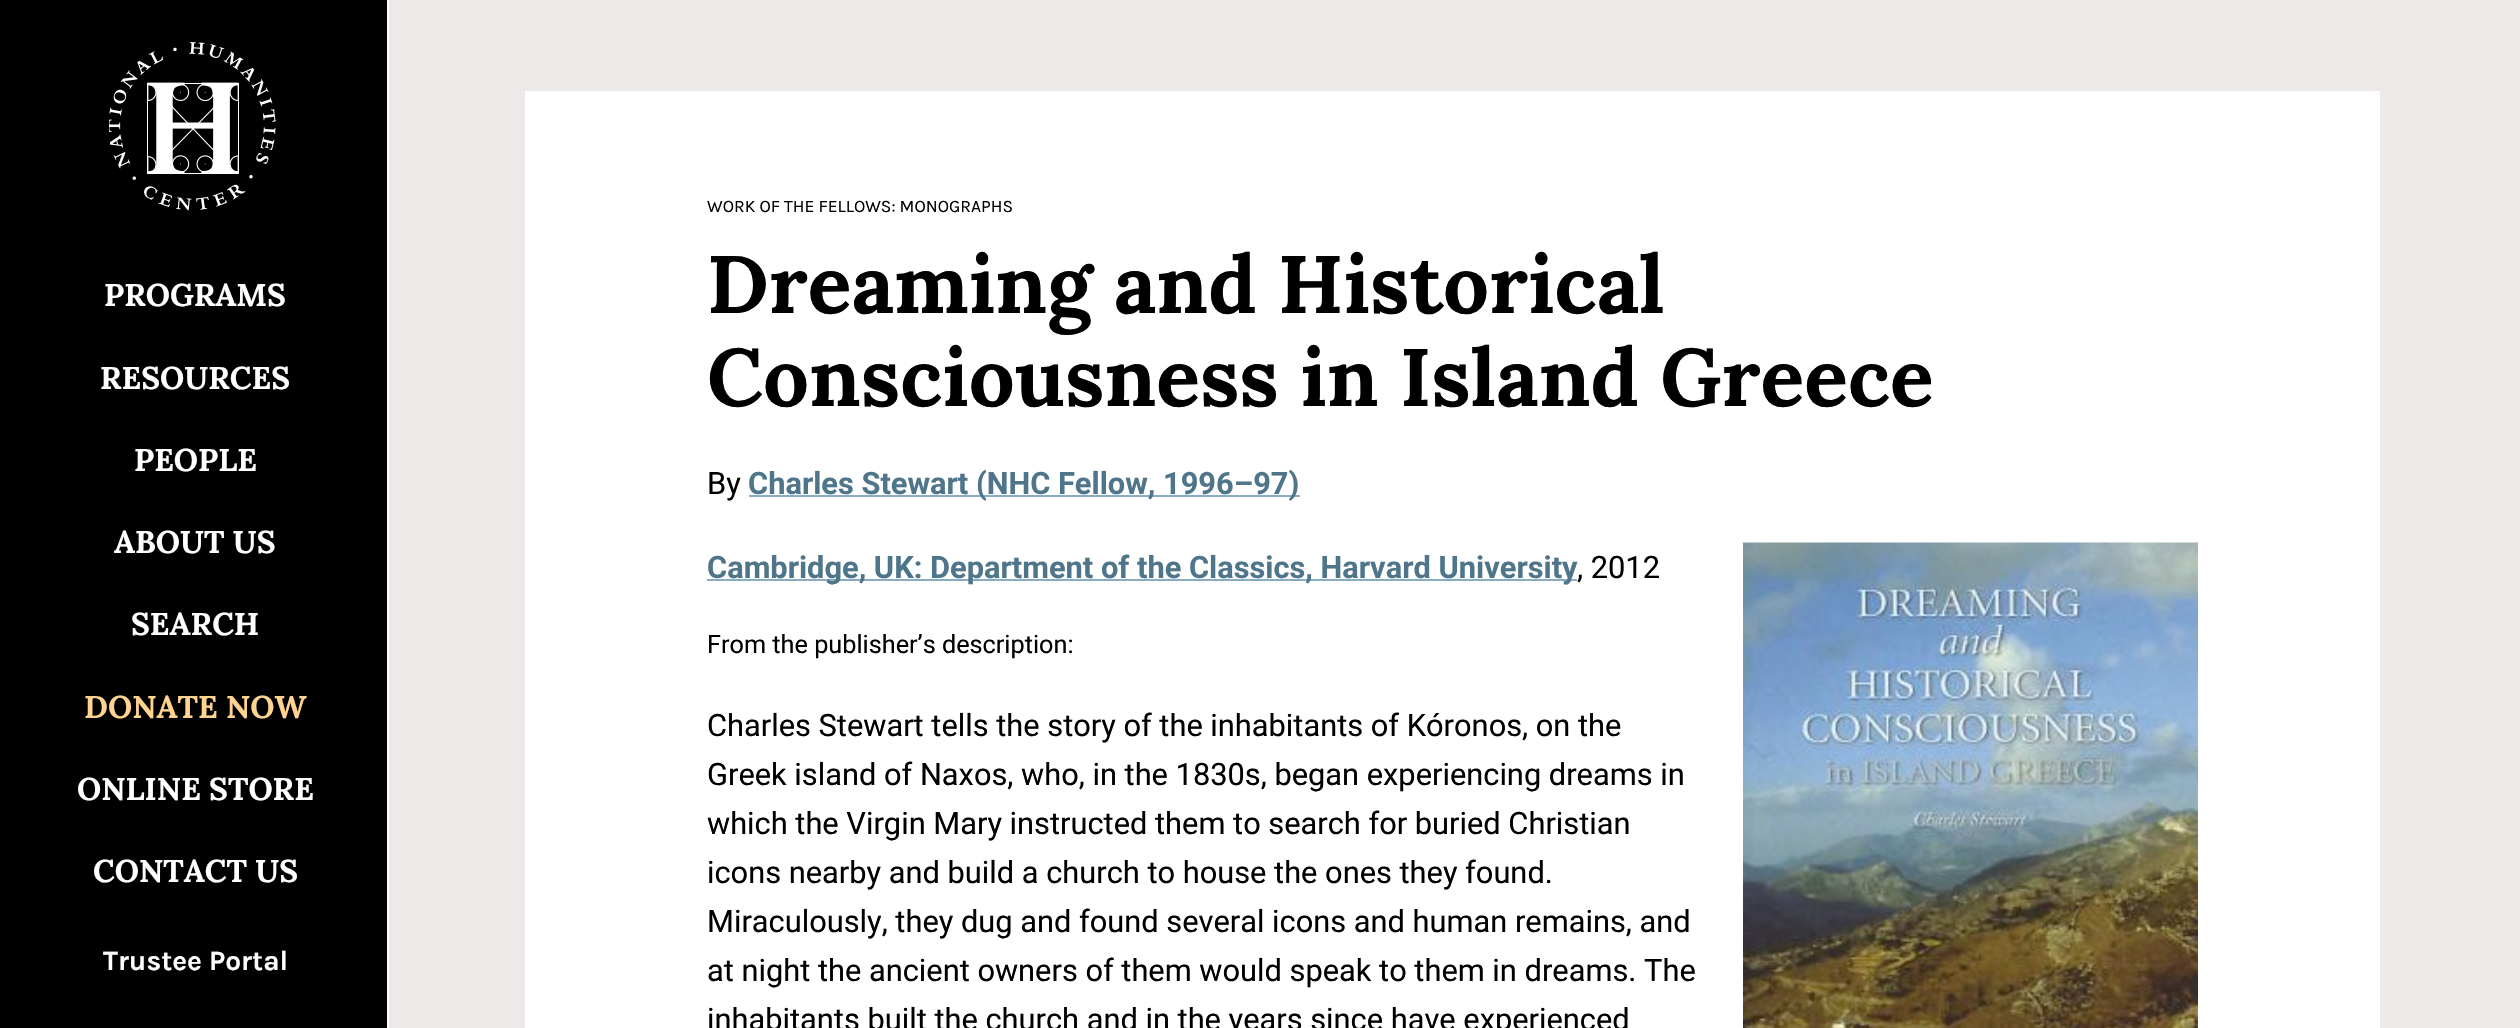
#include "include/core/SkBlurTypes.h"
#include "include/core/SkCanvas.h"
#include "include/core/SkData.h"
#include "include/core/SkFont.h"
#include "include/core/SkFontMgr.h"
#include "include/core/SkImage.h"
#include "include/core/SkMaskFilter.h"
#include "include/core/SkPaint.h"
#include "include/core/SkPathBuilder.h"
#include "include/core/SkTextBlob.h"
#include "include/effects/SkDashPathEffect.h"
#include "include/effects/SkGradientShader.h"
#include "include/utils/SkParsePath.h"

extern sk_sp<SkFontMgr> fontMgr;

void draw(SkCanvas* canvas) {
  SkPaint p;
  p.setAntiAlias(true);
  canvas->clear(SkColorSetRGB(238, 233, 233));
  p.setColor(SK_ColorBLACK);
  canvas->drawRect(SkRect::MakeLTRB(0, 0, 387, 1028), p);
  p.setColor(SK_ColorWHITE);
  canvas->drawRect(SkRect::MakeLTRB(387, 0, 389, 1028), p);
  canvas->drawImageRect(SkImages::DeferredFromEncodedData(SkData::MakeFromFileName("images/1.png")), SkRect::MakeLTRB(109, 42, 276, 211), SkSamplingOptions());
  canvas->drawRect(SkRect::MakeLTRB(525, 91, 2380, 1028), p);
  p.setColor(SkColorSetRGB(136, 173, 195));
  canvas->drawRect(SkRect::MakeLTRB(749, 495, 1300, 497), p);
  canvas->drawRect(SkRect::MakeLTRB(707, 579, 1577, 581), p);
  canvas->drawImageRect(SkImages::DeferredFromEncodedData(SkData::MakeFromFileName("images/2.png")), SkRect::MakeLTRB(1743, 542, 2198, 1028), SkSamplingOptions());
  SkFont font1(fontMgr->matchFamilyStyle("Lora", SkFontStyle::Bold()), 31.5f);
  font1.setSubpixel(true);
  p.setColor(SK_ColorWHITE);
  canvas->drawString("PROGRAMS", 104, 306, font1, p);
  canvas->drawString("RESOURCES", 100, 389, font1, p);
  canvas->drawString("PEOPLE", 134, 471, font1, p);
  canvas->drawString("ABOUT US", 114, 553, font1, p);
  canvas->drawString("SEARCH", 131, 635, font1, p);
  p.setColor(SkColorSetRGB(255, 211, 144));
  canvas->drawString("DONATE NOW", 84, 718, font1, p);
  p.setColor(SK_ColorWHITE);
  canvas->drawString("ONLINE STORE", 77, 800, font1, p);
  canvas->drawString("CONTACT US", 93, 882, font1, p);
  SkFont font2(fontMgr->matchFamilyStyle("Karla", SkFontStyle::Bold()), 28);
  font2.setSubpixel(true);
  canvas->drawString("Trustee Portal", 103, 970, font2, p);
  SkFont font3(fontMgr->matchFamilyStyle("Karla", SkFontStyle::Normal()), 17.5f);
  font3.setSubpixel(true);
  p.setColor(SK_ColorBLACK);
  canvas->drawString("WORK OF THE FELLOWS: MONOGRAPHS", 707, 212, font3, p);
  SkFont font4(fontMgr->matchFamilyStyle("Lora", SkFontStyle::Bold()), 81.25f);
  font4.setSubpixel(true);
  canvas->drawString("Dreaming and Historical", 707, 313, font4, p);
  canvas->drawString("Consciousness in Island Greece", 707, 406, font4, p);
  SkFont font5(fontMgr->matchFamilyStyle("Roboto", SkFontStyle::Normal()), 30.8f);
  font5.setSubpixel(true);
  canvas->drawString("By", 707, 494, font5, p);
  SkFont font6(fontMgr->matchFamilyStyle("Roboto", SkFontStyle::Bold()), 30.8f);
  font6.setSubpixel(true);
  p.setColor(SkColorSetRGB(79, 117, 139));
  canvas->drawString("Charles Stewart (NHC Fellow, 1996–97)", 748, 494, font6, p);
  canvas->drawString("Cambridge, UK: Department of the Classics, Harvard University", 707, 578, font6, p);
  p.setColor(SK_ColorBLACK);
  canvas->drawString(", 2012", 1577, 578, font5, p);
  SkFont font7(fontMgr->matchFamilyStyle("Roboto", SkFontStyle::Normal()), 25.25f);
  font7.setSubpixel(true);
  canvas->drawString("From the publisher’s description:", 707, 653, font7, p);
  canvas->drawString("Charles Stewart tells the story of the inhabitants of Kóronos, on the", 707, 736, font5, p);
  canvas->drawString("Greek island of Naxos, who, in the 1830s, began experiencing dreams in", 707, 785, font5, p);
  canvas->drawString("which the Virgin Mary instructed them to search for buried Christian", 707, 834, font5, p);
  canvas->drawString("icons nearby and build a church to house the ones they found.", 707, 883, font5, p);
  canvas->drawString("Miraculously, they dug and found several icons and human remains, and", 707, 932, font5, p);
  canvas->drawString("at night the ancient owners of them would speak to them in dreams. The", 707, 981, font5, p);
  canvas->drawString("inhabitants built the church and in the years since have experienced", 707, 1030, font5, p);
}
